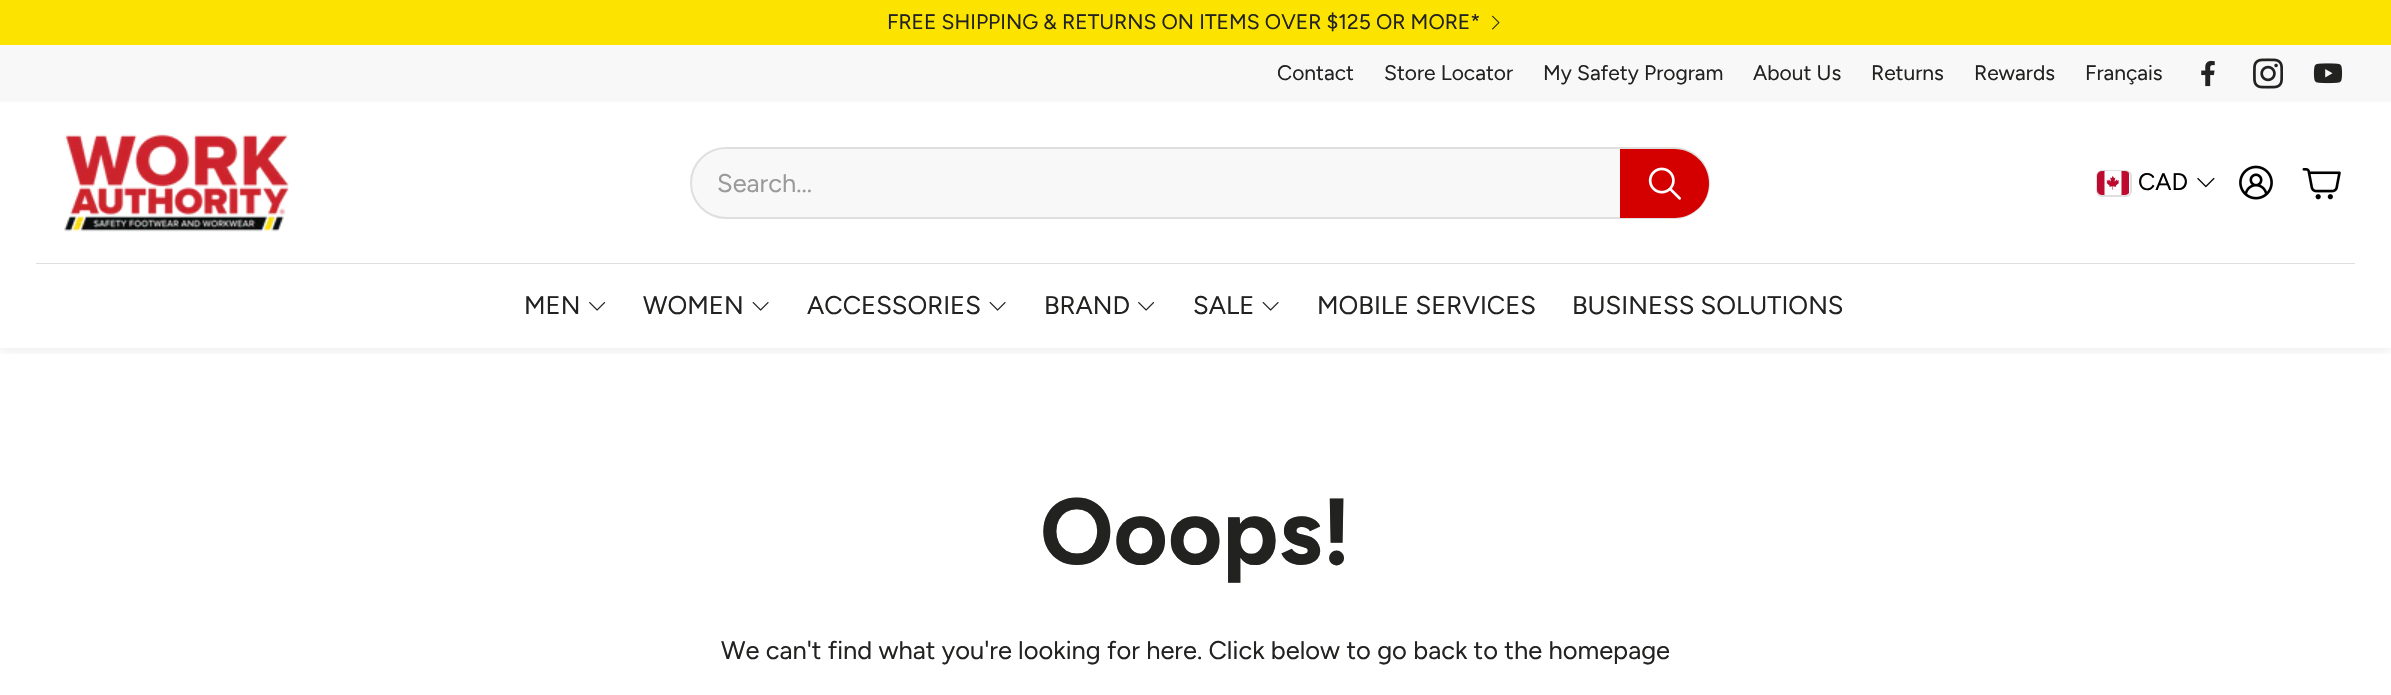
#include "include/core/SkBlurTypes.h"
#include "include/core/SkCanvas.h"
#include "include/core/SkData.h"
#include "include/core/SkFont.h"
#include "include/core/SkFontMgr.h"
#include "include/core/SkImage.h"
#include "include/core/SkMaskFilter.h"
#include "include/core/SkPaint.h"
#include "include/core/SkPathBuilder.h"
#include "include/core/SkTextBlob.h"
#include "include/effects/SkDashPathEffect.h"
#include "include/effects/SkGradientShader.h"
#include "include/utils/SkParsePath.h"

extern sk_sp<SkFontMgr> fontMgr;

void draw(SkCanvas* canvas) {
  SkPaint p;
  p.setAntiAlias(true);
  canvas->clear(SK_ColorWHITE);
  p.setColor(SkColorSetRGB(252, 227, 0));
  canvas->drawRect(SkRect::MakeLTRB(0, 0, 2391, 45), p);
  canvas->drawImageRect(SkImages::DeferredFromEncodedData(SkData::MakeFromFileName("images/1.png")), SkRect::MakeLTRB(1492, 15, 1500, 30), SkSamplingOptions());
  p.setColor(SkColorSetRGB(248, 248, 248));
  canvas->drawRect(SkRect::MakeLTRB(0, 45, 2391, 102), p);
  canvas->drawImageRect(SkImages::DeferredFromEncodedData(SkData::MakeFromFileName("images/2.png")), SkRect::MakeLTRB(2201, 60, 2215, 87), SkSamplingOptions());
  canvas->drawImageRect(SkImages::DeferredFromEncodedData(SkData::MakeFromFileName("images/3.png")), SkRect::MakeLTRB(2253, 58, 2283, 89), SkSamplingOptions());
  canvas->drawImageRect(SkImages::DeferredFromEncodedData(SkData::MakeFromFileName("images/4.png")), SkRect::MakeLTRB(2313, 63, 2343, 84), SkSamplingOptions());
  canvas->drawImageRect(SkImages::DeferredFromEncodedData(SkData::MakeFromFileName("images/5.png")), SkRect::MakeLTRB(64, 134, 289, 232), SkSamplingOptions());
  canvas->drawRoundRect(SkRect::MakeLTRB(691, 148, 1709, 218), 35, 35, p);
  p.setStyle(SkPaint::kStroke_Style);
  p.setStrokeWidth(2);
  p.setColor(SkColorSetRGB(223, 223, 223));
  canvas->drawRoundRect(SkRect::MakeLTRB(691, 148, 1709, 218), 35, 35, p);
  canvas->save();
  canvas->clipPath(SkPathBuilder().moveTo(726.5f, 149).lineTo(1674.5f, 149).cubicTo(1693.5f, 149, 1709, 164.5f, 1709, 183.5f).cubicTo(1709, 202.5f, 1693.5f, 218, 1674.5f, 218).lineTo(726.5f, 218).cubicTo(707.5f, 218, 692, 202.5f, 692, 183.5f).cubicTo(692, 164.5f, 707.5f, 149, 726.5f, 149).close().detach(), true);
  p.setStyle(SkPaint::kFill_Style);
  p.setColor(SkColorSetRGB(212, 0, 0));
  canvas->drawPath(SkPathBuilder().moveTo(1620, 147).lineTo(1674, 147).cubicTo(1694, 147, 1710, 163, 1710, 183).cubicTo(1710, 203, 1694, 219, 1674, 219).lineTo(1620, 219).close().detach(), p);
  canvas->restore();
  canvas->drawImageRect(SkImages::DeferredFromEncodedData(SkData::MakeFromFileName("images/6.png")), SkRect::MakeLTRB(1648, 167, 1681, 200), SkSamplingOptions());
  p.setStyle(SkPaint::kStroke_Style);
  p.setColor(SkColorSetRGB(223, 223, 223));
  canvas->drawRoundRect(SkRect::MakeLTRB(2097, 171, 2131, 196), 5, 5, p);
  canvas->drawImageRect(SkImages::DeferredFromEncodedData(SkData::MakeFromFileName("images/7.png")), SkRect::MakeLTRB(2097, 171, 2129, 195), SkSamplingOptions());
  canvas->drawImageRect(SkImages::DeferredFromEncodedData(SkData::MakeFromFileName("images/8.png")), SkRect::MakeLTRB(2197, 177, 2215, 188), SkSamplingOptions());
  canvas->drawImageRect(SkImages::DeferredFromEncodedData(SkData::MakeFromFileName("images/9.png")), SkRect::MakeLTRB(2239, 165, 2273, 200), SkSamplingOptions());
  canvas->drawImageRect(SkImages::DeferredFromEncodedData(SkData::MakeFromFileName("images/10.png")), SkRect::MakeLTRB(2302, 168, 2341, 200), SkSamplingOptions());
  p.setStyle(SkPaint::kFill_Style);
  canvas->drawRect(SkRect::MakeLTRB(36, 263, 2355, 264), p);
  canvas->save();
  canvas->clipRect(SkRect::MakeLTRB(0, 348, 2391, 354));
  p.setColor(SkColorSetARGB(13, 0, 0, 0));
  p.setMaskFilter(SkMaskFilter::MakeBlur(kNormal_SkBlurStyle, 4.5f));
  canvas->drawRect(SkRect::MakeLTRB(0, 269, 2391, 353), p);
  p.setMaskFilter(nullptr);
  canvas->restore();
  canvas->drawImageRect(SkImages::DeferredFromEncodedData(SkData::MakeFromFileName("images/11.png")), SkRect::MakeLTRB(589, 302, 606, 311), SkSamplingOptions());
  canvas->drawImageRect(SkImages::DeferredFromEncodedData(SkData::MakeFromFileName("images/12.png")), SkRect::MakeLTRB(752, 302, 769, 311), SkSamplingOptions());
  canvas->drawImageRect(SkImages::DeferredFromEncodedData(SkData::MakeFromFileName("images/12.png")), SkRect::MakeLTRB(989, 302, 1006, 311), SkSamplingOptions());
  canvas->drawImageRect(SkImages::DeferredFromEncodedData(SkData::MakeFromFileName("images/11.png")), SkRect::MakeLTRB(1138, 302, 1155, 311), SkSamplingOptions());
  canvas->drawImageRect(SkImages::DeferredFromEncodedData(SkData::MakeFromFileName("images/12.png")), SkRect::MakeLTRB(1262, 302, 1279, 311), SkSamplingOptions());
  SkFont font1(fontMgr->matchFamilyStyle("Figtree", SkFontStyle::Normal()), 21);
  font1.setSubpixel(true);
  p.setColor(SkColorSetRGB(34, 35, 33));
  canvas->drawString("FREE SHIPPING & RETURNS ON ITEMS OVER $125 OR MORE*", 887, 29, font1, p);
  canvas->drawString("Contact", 1277, 80, font1, p);
  canvas->drawString("Store Locator", 1384, 80, font1, p);
  canvas->drawString("My Safety Program", 1543, 80, font1, p);
  canvas->drawString("About Us", 1753, 80, font1, p);
  canvas->drawString("Returns", 1871, 80, font1, p);
  canvas->drawString("Rewards", 1974, 80, font1, p);
  canvas->drawString("Français", 2085, 80, font1, p);
  SkFont font2(fontMgr->matchFamilyStyle("Figtree", SkFontStyle::Normal()), 25.5f);
  font2.setSubpixel(true);
  p.setColor(SkColorSetRGB(154, 154, 154));
  canvas->drawString("Search...", 717, 192, font2, p);
  SkFont font3(fontMgr->matchFamilyStyle("Figtree", SkFontStyle::Normal()), 24);
  font3.setSubpixel(true);
  p.setColor(SK_ColorBLACK);
  canvas->drawString("CAD", 2138, 190, font3, p);
  p.setColor(SkColorSetRGB(34, 35, 33));
  canvas->drawString("MEN", 524, 314, font2, p);
  canvas->drawString("WOMEN", 643, 314, font2, p);
  canvas->drawString("ACCESSORIES", 807, 314, font2, p);
  canvas->drawString("BRAND", 1044, 314, font2, p);
  canvas->drawString("SALE", 1193, 314, font2, p);
  canvas->drawString("MOBILE SERVICES", 1317, 314, font2, p);
  canvas->drawString("BUSINESS SOLUTIONS", 1572, 314, font2, p);
  SkFont font4(fontMgr->matchFamilyStyle("Figtree", SkFontStyle::Bold()), 93.5f);
  font4.setSubpixel(true);
  canvas->drawString("Ooops!", 1040, 564, font4, p);
  canvas->drawString("We can't find what you're looking for here. Click below to go back to the homepage", 721, 659, font2, p);
}
